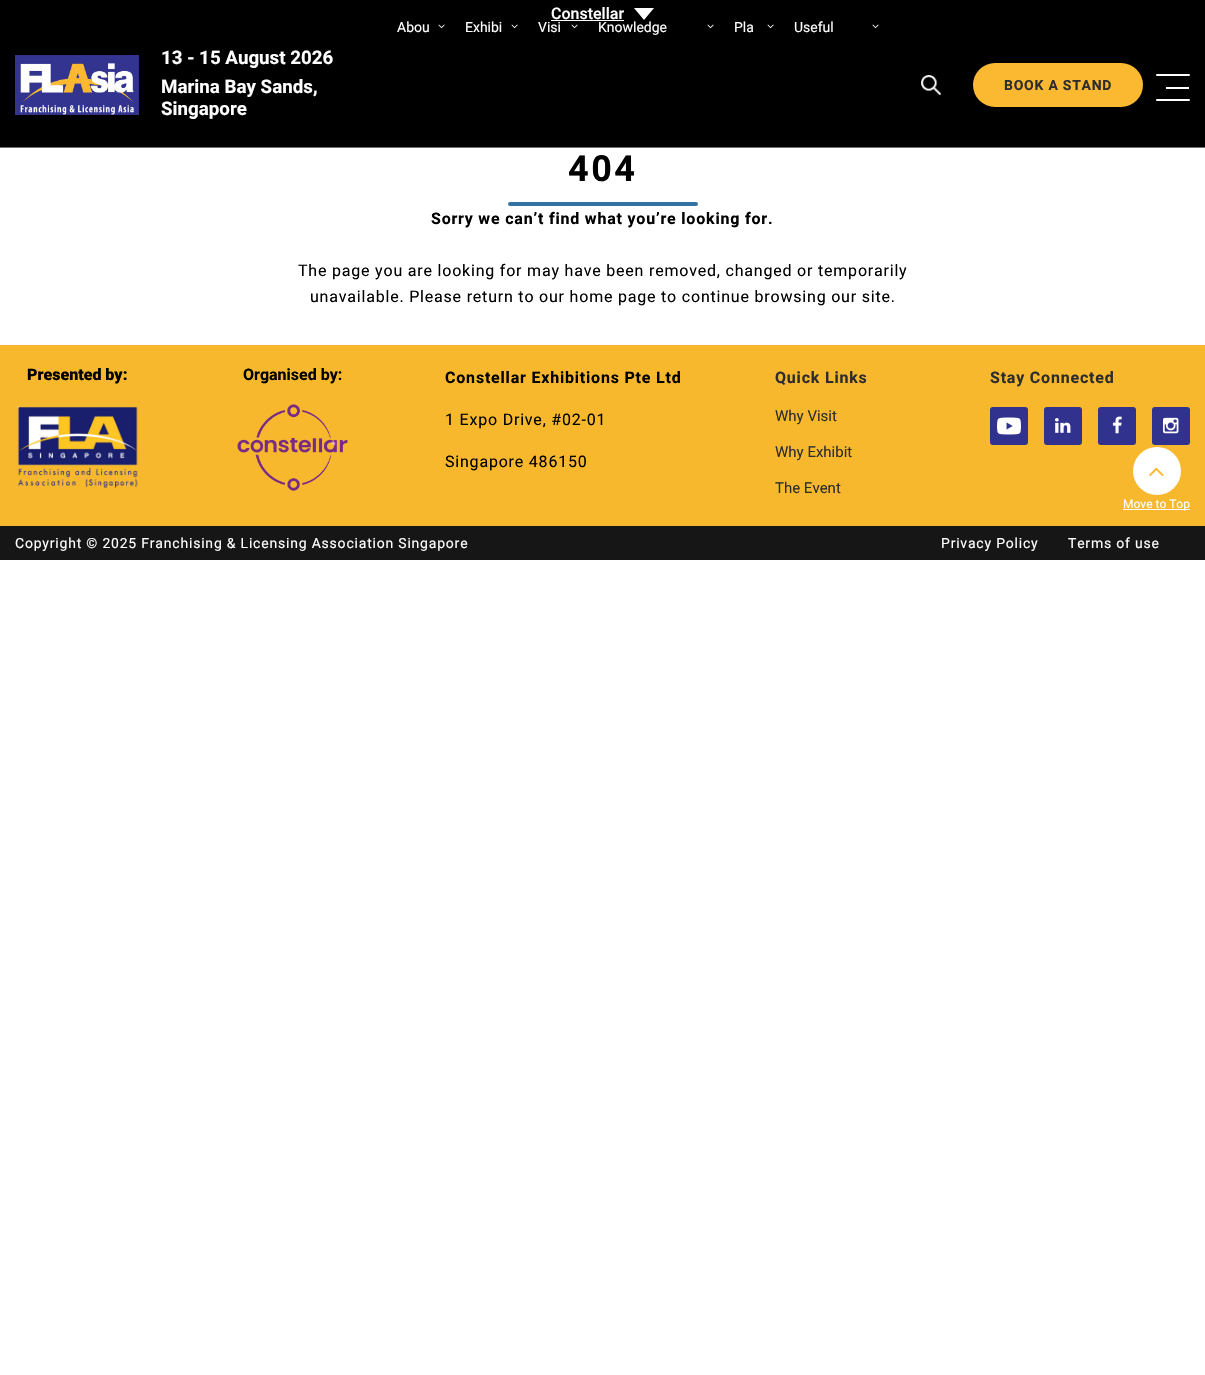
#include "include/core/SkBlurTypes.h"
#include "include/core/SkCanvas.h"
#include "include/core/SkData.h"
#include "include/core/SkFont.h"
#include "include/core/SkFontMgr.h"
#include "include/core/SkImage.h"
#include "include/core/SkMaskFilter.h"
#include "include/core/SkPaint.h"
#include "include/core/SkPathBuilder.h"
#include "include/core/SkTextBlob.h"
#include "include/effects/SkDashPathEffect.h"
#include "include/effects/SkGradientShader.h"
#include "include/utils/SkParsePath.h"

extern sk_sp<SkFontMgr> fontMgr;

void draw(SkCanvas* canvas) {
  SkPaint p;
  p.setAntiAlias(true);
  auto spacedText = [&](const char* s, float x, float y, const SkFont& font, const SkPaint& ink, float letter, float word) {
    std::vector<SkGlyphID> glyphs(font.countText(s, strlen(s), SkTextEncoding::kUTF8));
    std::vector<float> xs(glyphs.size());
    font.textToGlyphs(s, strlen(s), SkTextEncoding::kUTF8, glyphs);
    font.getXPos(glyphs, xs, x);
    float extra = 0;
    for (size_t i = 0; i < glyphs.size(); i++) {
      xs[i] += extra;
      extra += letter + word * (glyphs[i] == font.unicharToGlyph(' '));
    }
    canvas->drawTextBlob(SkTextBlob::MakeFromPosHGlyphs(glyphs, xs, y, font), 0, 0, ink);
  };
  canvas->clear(SK_ColorWHITE);
  p.setColor(SK_ColorBLACK);
  canvas->drawRect(SkRect::MakeLTRB(0, 0, 1205, 147), p);
  p.setColor(SK_ColorWHITE);
  canvas->drawRect(SkRect::MakeLTRB(551, 20, 624, 21), p);
  canvas->drawPath(SkPathBuilder().moveTo(634, 8).lineTo(654, 8).lineTo(644, 20).close().detach(), p);
  p.setColor(SkColorSetRGB(112, 112, 112));
  canvas->drawRect(SkRect::MakeLTRB(0, 147, 1205, 148), p);
  canvas->drawImageRect(SkImages::DeferredFromEncodedData(SkData::MakeFromFileName("images/1.png")), SkRect::MakeLTRB(438, 24, 445, 29), SkSamplingOptions());
  canvas->drawImageRect(SkImages::DeferredFromEncodedData(SkData::MakeFromFileName("images/1.png")), SkRect::MakeLTRB(511, 24, 518, 29), SkSamplingOptions());
  canvas->drawImageRect(SkImages::DeferredFromEncodedData(SkData::MakeFromFileName("images/1.png")), SkRect::MakeLTRB(571, 24, 578, 29), SkSamplingOptions());
  canvas->drawImageRect(SkImages::DeferredFromEncodedData(SkData::MakeFromFileName("images/1.png")), SkRect::MakeLTRB(707, 24, 714, 29), SkSamplingOptions());
  canvas->drawImageRect(SkImages::DeferredFromEncodedData(SkData::MakeFromFileName("images/1.png")), SkRect::MakeLTRB(767, 24, 774, 29), SkSamplingOptions());
  canvas->drawImageRect(SkImages::DeferredFromEncodedData(SkData::MakeFromFileName("images/1.png")), SkRect::MakeLTRB(872, 24, 879, 29), SkSamplingOptions());
  canvas->drawImageRect(SkImages::DeferredFromEncodedData(SkData::MakeFromFileName("images/2.png")), SkRect::MakeLTRB(15, 55, 139, 115), SkSamplingOptions());
  canvas->drawImageRect(SkImages::DeferredFromEncodedData(SkData::MakeFromFileName("images/3.png")), SkRect::MakeLTRB(921, 75, 941, 95), SkSamplingOptions());
  p.setColor(SkColorSetRGB(250, 185, 48));
  canvas->drawRoundRect(SkRect::MakeLTRB(973, 63, 1143, 107), 22, 22, p);
  p.setColor(SK_ColorWHITE);
  canvas->drawRoundRect(SkRect::MakeLTRB(1156, 74, 1190, 76), 1, 1, p);
  canvas->drawRect(SkRect::MakeLTRB(1166, 87, 1189, 89), p);
  canvas->drawRoundRect(SkRect::MakeLTRB(1156, 99, 1190, 101), 1, 1, p);
  p.setColor(SkColorSetRGB(53, 114, 164));
  canvas->drawRoundRect(SkRect::MakeLTRB(508, 202, 698, 206), 2, 2, p);
  p.setColor(SkColorSetRGB(248, 184, 46));
  canvas->drawRect(SkRect::MakeLTRB(0, 345, 1205, 526), p);
  canvas->drawImageRect(SkImages::DeferredFromEncodedData(SkData::MakeFromFileName("images/4.png")), SkRect::MakeLTRB(17, 406, 138, 488), SkSamplingOptions());
  canvas->drawImageRect(SkImages::DeferredFromEncodedData(SkData::MakeFromFileName("images/5.png")), SkRect::MakeLTRB(237, 404, 348, 491), SkSamplingOptions());
  p.setColor(SkColorSetRGB(49, 50, 142));
  canvas->drawRoundRect(SkRect::MakeLTRB(990, 407, 1028, 445), 3, 3, p);
  canvas->drawImageRect(SkImages::DeferredFromEncodedData(SkData::MakeFromFileName("images/6.png")), SkRect::MakeLTRB(997, 417, 1021, 435), SkSamplingOptions());
  canvas->drawRoundRect(SkRect::MakeLTRB(1044, 407, 1082, 445), 3, 3, p);
  canvas->drawImageRect(SkImages::DeferredFromEncodedData(SkData::MakeFromFileName("images/7.png")), SkRect::MakeLTRB(1055, 418, 1071, 433), SkSamplingOptions());
  canvas->drawRoundRect(SkRect::MakeLTRB(1098, 407, 1136, 445), 3, 3, p);
  canvas->drawImageRect(SkImages::DeferredFromEncodedData(SkData::MakeFromFileName("images/8.png")), SkRect::MakeLTRB(1112, 416, 1122, 434), SkSamplingOptions());
  canvas->drawRoundRect(SkRect::MakeLTRB(1152, 407, 1190, 445), 3, 3, p);
  canvas->drawImageRect(SkImages::DeferredFromEncodedData(SkData::MakeFromFileName("images/9.png")), SkRect::MakeLTRB(1163, 417, 1179, 434), SkSamplingOptions());
  p.setColor(SK_ColorWHITE);
  canvas->drawCircle(1157, 471, 24, p);
  canvas->drawImageRect(SkImages::DeferredFromEncodedData(SkData::MakeFromFileName("images/10.png")), SkRect::MakeLTRB(1149, 467, 1164, 476), SkSamplingOptions());
  canvas->drawRect(SkRect::MakeLTRB(1123, 509, 1190, 510), p);
  p.setColor(SkColorSetRGB(22, 22, 22));
  canvas->drawRect(SkRect::MakeLTRB(0, 526, 1205, 560), p);
  SkFont font1(fontMgr->matchFamilyStyle("Roboto", SkFontStyle(500, SkFontStyle::kNormal_Width, SkFontStyle::kUpright_Slant)), 16);
  font1.setSubpixel(true);
  p.setColor(SK_ColorWHITE);
  canvas->drawString("Constellar", 551, 19, font1, p);
  SkFont font2(fontMgr->matchFamilyStyle("Roboto", SkFontStyle::Normal()), 14);
  font2.setSubpixel(true);
  canvas->drawString("Abou", 397, 32, font2, p);
  canvas->drawString("Exhibi", 465, 32, font2, p);
  canvas->drawString("Visi", 538, 32, font2, p);
  canvas->drawString("Knowledge", 598, 32, font2, p);
  canvas->drawString("Pla", 734, 32, font2, p);
  canvas->drawString("Useful", 794, 32, font2, p);
  SkFont font3(fontMgr->matchFamilyStyle("Roboto", SkFontStyle::Bold()), 18.75f);
  font3.setSubpixel(true);
  canvas->drawString("13 - 15 August 2026", 161, 64, font3, p);
  canvas->drawString("Marina Bay Sands,", 161, 93, font3, p);
  canvas->drawString("Singapore", 161, 115, font3, p);
  SkFont font4(fontMgr->matchFamilyStyle("Roboto", SkFontStyle::Bold()), 14);
  font4.setSubpixel(true);
  p.setColor(SkColorSetRGB(45, 45, 45));
  spacedText("BOOK A STAND", 1004, 90, font4, p, 0.75f, 0);
  SkFont font5(fontMgr->matchFamilyStyle("Roboto", SkFontStyle::Bold()), 36);
  font5.setSubpixel(true);
  p.setColor(SK_ColorBLACK);
  spacedText("404", 568, 181, font5, p, 2.5f, 0);
  SkFont font6(fontMgr->matchFamilyStyle("Roboto", SkFontStyle::Bold()), 16);
  font6.setSubpixel(true);
  spacedText("Sorry we can’t find what you’re looking for.", 431, 224, font6, p, 0.8f, 0);
  SkFont font7(fontMgr->matchFamilyStyle("Roboto", SkFontStyle::Normal()), 16);
  font7.setSubpixel(true);
  spacedText("The page you are looking for may have been removed, changed or temporarily", 298, 276, font7, p, 0.8f, 0);
  spacedText("unavailable. Please return to our home page to continue browsing our site.", 310, 302, font7, p, 0.8f, 0);
  SkFont font8(fontMgr->matchFamilyStyle("Roboto", SkFontStyle(900, SkFontStyle::kNormal_Width, SkFontStyle::kUpright_Slant)), 16);
  font8.setSubpixel(true);
  canvas->drawString("Presented by:", 27, 380, font8, p);
  canvas->drawString("Organised by:", 243, 380, font6, p);
  spacedText("Constellar Exhibitions Pte Ltd", 445, 383, font6, p, 0.8f, 0);
  spacedText("1 Expo Drive, #02-01", 445, 425, font7, p, 0.8f, 0);
  spacedText("Singapore 486150", 445, 467, font7, p, 0.8f, 0);
  p.setColor(SkColorSetRGB(45, 45, 45));
  spacedText("Quick Links", 775, 383, font6, p, 0.8f, 0);
  SkFont font9(fontMgr->matchFamilyStyle("Roboto", SkFontStyle::Normal()), 15);
  font9.setSubpixel(true);
  canvas->drawString("Why Visit", 775, 421, font9, p);
  canvas->drawString("Why Exhibit", 775, 457, font9, p);
  canvas->drawString("The Event", 775, 493, font9, p);
  spacedText("Stay Connected", 990, 383, font6, p, 0.8f, 0);
  SkFont font10(fontMgr->matchFamilyStyle("Roboto", SkFontStyle::Normal()), 12);
  font10.setSubpixel(true);
  p.setColor(SK_ColorWHITE);
  canvas->drawString("Move to Top", 1123, 508, font10, p);
  spacedText("Copyright © 2025 Franchising & Licensing Association Singapore", 15, 548, font2, p, 0.8f, 0);
  spacedText("Privacy Policy", 941, 548, font2, p, 0.8f, 0);
  spacedText("Terms of use", 1068, 548, font2, p, 0.8f, 0);
}
